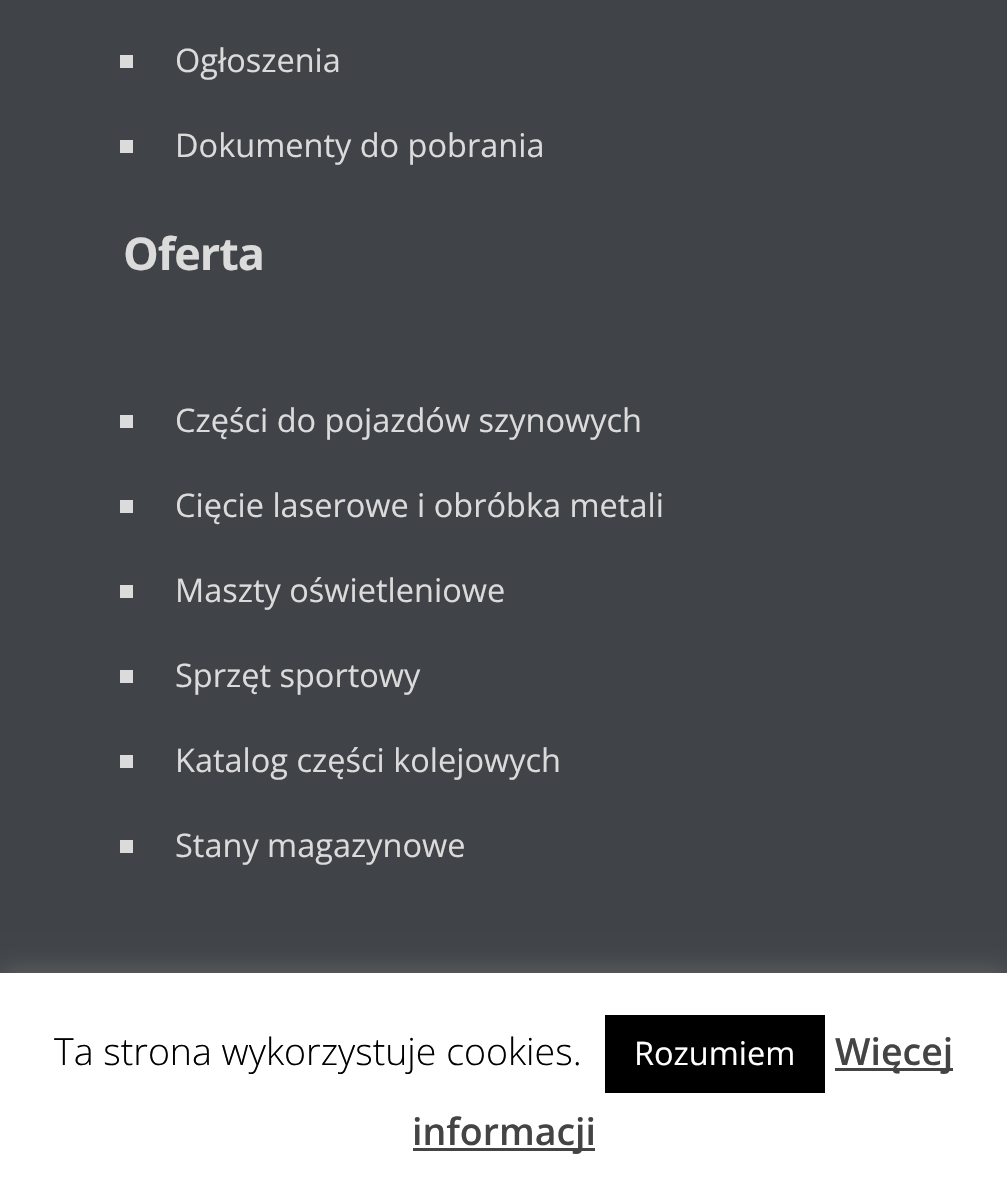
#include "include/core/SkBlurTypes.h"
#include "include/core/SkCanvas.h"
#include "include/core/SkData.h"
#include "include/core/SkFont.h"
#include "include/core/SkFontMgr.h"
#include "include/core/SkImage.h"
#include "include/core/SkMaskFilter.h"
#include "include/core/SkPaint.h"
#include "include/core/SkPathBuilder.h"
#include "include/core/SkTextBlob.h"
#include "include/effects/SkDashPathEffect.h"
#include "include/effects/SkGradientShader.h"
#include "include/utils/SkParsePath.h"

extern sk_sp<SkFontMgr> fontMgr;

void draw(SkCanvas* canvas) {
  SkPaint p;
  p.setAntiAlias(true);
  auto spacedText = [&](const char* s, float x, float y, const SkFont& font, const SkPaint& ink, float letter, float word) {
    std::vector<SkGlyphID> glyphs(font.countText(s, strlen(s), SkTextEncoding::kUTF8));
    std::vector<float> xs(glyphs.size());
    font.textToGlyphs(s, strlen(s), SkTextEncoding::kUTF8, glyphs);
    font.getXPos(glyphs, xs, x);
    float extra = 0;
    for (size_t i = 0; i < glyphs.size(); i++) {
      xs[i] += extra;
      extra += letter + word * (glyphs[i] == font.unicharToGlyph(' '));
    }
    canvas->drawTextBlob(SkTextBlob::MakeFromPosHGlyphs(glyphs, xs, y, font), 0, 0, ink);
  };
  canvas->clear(SkColorSetRGB(64, 67, 71));
  p.setColor(SkColorSetRGB(219, 219, 219));
  canvas->drawRect(SkRect::MakeLTRB(120, 55, 133, 68), p);
  canvas->drawRect(SkRect::MakeLTRB(120, 140, 133, 153), p);
  canvas->drawRect(SkRect::MakeLTRB(120, 415, 133, 428), p);
  canvas->drawRect(SkRect::MakeLTRB(120, 500, 133, 513), p);
  canvas->drawRect(SkRect::MakeLTRB(120, 585, 133, 598), p);
  canvas->drawRect(SkRect::MakeLTRB(120, 670, 133, 683), p);
  canvas->drawRect(SkRect::MakeLTRB(120, 755, 133, 768), p);
  canvas->drawRect(SkRect::MakeLTRB(120, 840, 133, 853), p);
  p.setColor(SkColorSetARGB(77, 172, 171, 171));
  p.setMaskFilter(SkMaskFilter::MakeBlur(kNormal_SkBlurStyle, 12.5f));
  canvas->drawRect(SkRect::MakeLTRB(0, 970, 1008, 1190), p);
  p.setMaskFilter(nullptr);
  p.setColor(SK_ColorWHITE);
  canvas->drawRect(SkRect::MakeLTRB(0, 973, 1007, 1192), p);
  p.setColor(SK_ColorBLACK);
  canvas->drawRect(SkRect::MakeLTRB(605, 1015, 825, 1093), p);
  p.setColor(SkColorSetRGB(68, 68, 68));
  canvas->drawRect(SkRect::MakeLTRB(835, 1068, 953, 1071), p);
  canvas->drawRect(SkRect::MakeLTRB(413, 1148, 595, 1151), p);
  SkFont font1(fontMgr->matchFamilyStyle("Open Sans", SkFontStyle::Normal()), 32.5f);
  font1.setSubpixel(true);
  p.setColor(SkColorSetRGB(219, 219, 219));
  canvas->drawString("Ogłoszenia", 175, 72, font1, p);
  canvas->drawString("Dokumenty do pobrania", 175, 157, font1, p);
  SkFont font2(fontMgr->matchFamilyStyle("Open Sans", SkFontStyle::Bold()), 45);
  font2.setSubpixel(true);
  spacedText("Oferta", 123, 270, font2, p, -1, 0);
  canvas->drawString("Części do pojazdów szynowych", 175, 432, font1, p);
  canvas->drawString("Cięcie laserowe i obróbka metali", 175, 517, font1, p);
  canvas->drawString("Maszty oświetleniowe", 175, 602, font1, p);
  canvas->drawString("Sprzęt sportowy", 175, 687, font1, p);
  canvas->drawString("Katalog części kolejowych", 175, 772, font1, p);
  canvas->drawString("Stany magazynowe", 175, 857, font1, p);
  SkFont font3(fontMgr->matchFamilyStyle("Open Sans", SkFontStyle(300, SkFontStyle::kNormal_Width, SkFontStyle::kUpright_Slant)), 37.5f);
  font3.setSubpixel(true);
  p.setColor(SK_ColorBLACK);
  canvas->drawString("Ta strona wykorzystuje cookies.", 54, 1065, font3, p);
  p.setColor(SK_ColorWHITE);
  canvas->drawString("Rozumiem", 634, 1065, font1, p);
  SkFont font4(fontMgr->matchFamilyStyle("Open Sans", SkFontStyle(600, SkFontStyle::kNormal_Width, SkFontStyle::kUpright_Slant)), 37.5f);
  font4.setSubpixel(true);
  p.setColor(SkColorSetRGB(68, 68, 68));
  canvas->drawString("Więcej", 835, 1065, font4, p);
  canvas->drawString("informacji", 412, 1145, font4, p);
}
